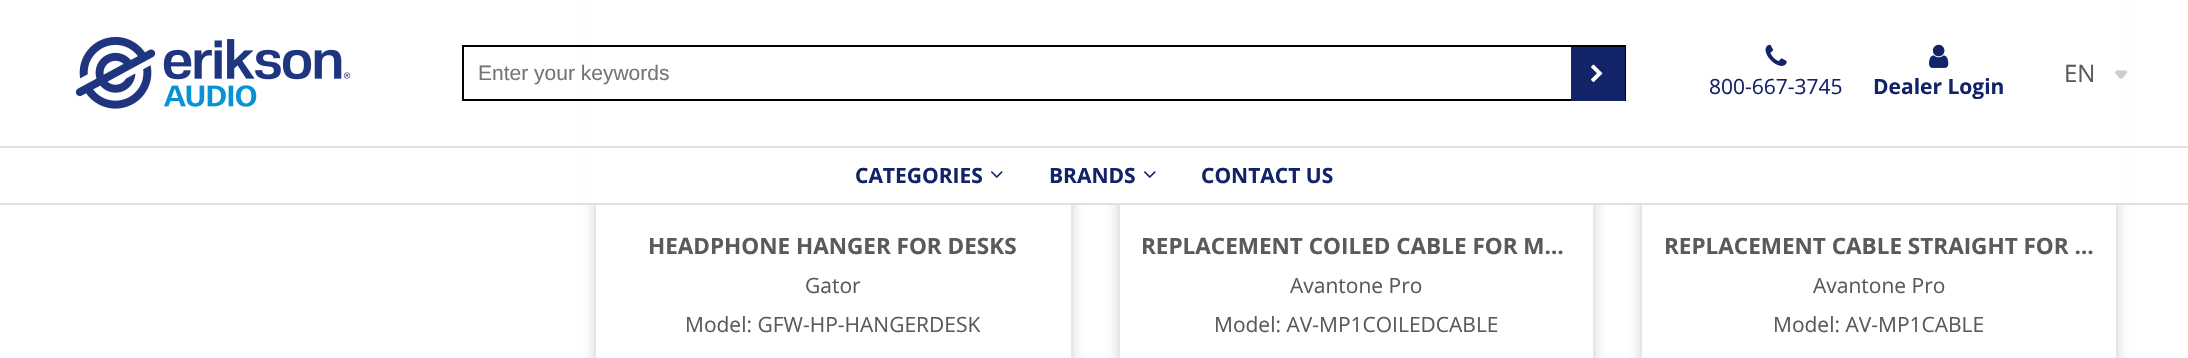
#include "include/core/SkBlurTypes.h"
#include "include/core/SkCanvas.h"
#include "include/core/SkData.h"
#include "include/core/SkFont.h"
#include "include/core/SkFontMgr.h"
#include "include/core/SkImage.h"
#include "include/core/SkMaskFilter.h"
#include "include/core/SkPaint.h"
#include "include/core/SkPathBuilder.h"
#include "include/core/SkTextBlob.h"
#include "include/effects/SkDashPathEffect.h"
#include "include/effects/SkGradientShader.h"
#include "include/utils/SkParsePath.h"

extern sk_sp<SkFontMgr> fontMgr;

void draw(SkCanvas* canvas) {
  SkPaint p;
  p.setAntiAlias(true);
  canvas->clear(SK_ColorWHITE);
  p.setColor(SkColorSetARGB(51, 50, 50, 50));
  p.setMaskFilter(SkMaskFilter::MakeBlur(kNormal_SkBlurStyle, 6));
  canvas->drawRect(SkRect::MakeLTRB(594, -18, 1073, 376), p);
  p.setMaskFilter(nullptr);
  p.setColor(SK_ColorWHITE);
  canvas->drawRect(SkRect::MakeLTRB(596, 205, 1071, 358), p);
  p.setStyle(SkPaint::kStroke_Style);
  p.setStrokeWidth(2);
  p.setColor(SkColorSetRGB(230, 230, 230));
  canvas->drawRect(SkRect::MakeLTRB(595, -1, 1072, 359), p);
  p.setStyle(SkPaint::kFill_Style);
  p.setColor(SkColorSetARGB(51, 50, 50, 50));
  p.setMaskFilter(SkMaskFilter::MakeBlur(kNormal_SkBlurStyle, 6));
  canvas->drawRect(SkRect::MakeLTRB(1118, -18, 1595, 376), p);
  p.setMaskFilter(nullptr);
  p.setColor(SK_ColorWHITE);
  canvas->drawRect(SkRect::MakeLTRB(1120, 205, 1593, 358), p);
  p.setStyle(SkPaint::kStroke_Style);
  p.setColor(SkColorSetRGB(230, 230, 230));
  canvas->drawRect(SkRect::MakeLTRB(1119, -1, 1594, 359), p);
  canvas->save();
  canvas->clipPath(SkPathBuilder(SkPathFillType::kEvenOdd).moveTo(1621, 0).lineTo(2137, 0).lineTo(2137, 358).lineTo(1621, 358).close().moveTo(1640, -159).lineTo(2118, -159).lineTo(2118, 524).lineTo(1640, 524).close().detach(), true);
  p.setStyle(SkPaint::kFill_Style);
  p.setColor(SkColorSetARGB(51, 50, 50, 50));
  p.setMaskFilter(SkMaskFilter::MakeBlur(kNormal_SkBlurStyle, 6));
  canvas->drawRect(SkRect::MakeLTRB(1640, -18, 2118, 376), p);
  p.setMaskFilter(nullptr);
  canvas->restore();
  p.setStyle(SkPaint::kStroke_Style);
  p.setColor(SkColorSetRGB(230, 230, 230));
  canvas->drawRect(SkRect::MakeLTRB(1641, -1, 2117, 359), p);
  p.setStyle(SkPaint::kFill_Style);
  p.setColor(SK_ColorWHITE);
  canvas->drawRect(SkRect::MakeLTRB(585, 0, 2127, 203), p);
  p.setColor(SkColorSetRGB(225, 225, 225));
  canvas->drawRect(SkRect::MakeLTRB(0, 146, 2188, 148), p);
  canvas->drawImageRect(SkImages::DeferredFromEncodedData(SkData::MakeFromFileName("images/1.png")), SkRect::MakeLTRB(75, 36, 351, 109), SkSamplingOptions());
  p.setStyle(SkPaint::kStroke_Style);
  p.setColor(SK_ColorBLACK);
  canvas->drawRect(SkRect::MakeLTRB(463, 46, 1625, 100), p);
  p.setStyle(SkPaint::kFill_Style);
  p.setColor(SkColorSetRGB(19, 35, 105));
  canvas->drawRect(SkRect::MakeLTRB(1571, 47, 1625, 101), p);
  canvas->drawImageRect(SkImages::DeferredFromEncodedData(SkData::MakeFromFileName("images/2.png")), SkRect::MakeLTRB(1591, 64, 1603, 83), SkSamplingOptions());
  canvas->drawImageRect(SkImages::DeferredFromEncodedData(SkData::MakeFromFileName("images/3.png")), SkRect::MakeLTRB(2115, 70, 2127, 79), SkSamplingOptions());
  canvas->drawImageRect(SkImages::DeferredFromEncodedData(SkData::MakeFromFileName("images/4.png")), SkRect::MakeLTRB(1765, 44, 1787, 66), SkSamplingOptions());
  canvas->drawImageRect(SkImages::DeferredFromEncodedData(SkData::MakeFromFileName("images/5.png")), SkRect::MakeLTRB(1929, 44, 1949, 68), SkSamplingOptions());
  p.setColor(SkColorSetRGB(224, 224, 224));
  canvas->drawRect(SkRect::MakeLTRB(0, 203, 2188, 205), p);
  canvas->drawImageRect(SkImages::DeferredFromEncodedData(SkData::MakeFromFileName("images/6.png")), SkRect::MakeLTRB(991, 171, 1003, 178), SkSamplingOptions());
  canvas->drawImageRect(SkImages::DeferredFromEncodedData(SkData::MakeFromFileName("images/6.png")), SkRect::MakeLTRB(1144, 171, 1156, 178), SkSamplingOptions());
  SkFont font1(fontMgr->matchFamilyStyle("Liberation Sans", SkFontStyle::Normal()), 21);
  font1.setSubpixel(true);
  p.setColor(SkColorSetRGB(117, 117, 117));
  canvas->drawString("Enter your keywords", 478, 80, font1, p);
  SkFont font2(fontMgr->matchFamilyStyle("Open Sans", SkFontStyle::Normal()), 24);
  font2.setSubpixel(true);
  p.setColor(SkColorSetRGB(90, 90, 90));
  canvas->drawString("EN", 2064, 82, font2, p);
  SkFont font3(fontMgr->matchFamilyStyle("Open Sans", SkFontStyle::Normal()), 21);
  font3.setSubpixel(true);
  p.setColor(SkColorSetRGB(19, 35, 105));
  canvas->drawString("800-667-3745", 1709, 94, font3, p);
  SkFont font4(fontMgr->matchFamilyStyle("Open Sans", SkFontStyle::Bold()), 21);
  font4.setSubpixel(true);
  canvas->drawString("Dealer Login", 1873, 94, font4, p);
  canvas->drawString("CATEGORIES", 855, 183, font4, p);
  canvas->drawString("BRANDS", 1049, 183, font4, p);
  canvas->drawString("CONTACT US", 1201, 183, font4, p);
  SkFont font5(fontMgr->matchFamilyStyle("Open Sans", SkFontStyle::Bold()), 22.5f);
  font5.setSubpixel(true);
  p.setColor(SkColorSetRGB(90, 90, 90));
  canvas->drawString("HEADPHONE HANGER FOR DESKS", 648, 254, font5, p);
  canvas->drawString("Gator", 805, 293, font3, p);
  canvas->drawString("Model: GFW-HP-HANGERDESK", 685, 332, font3, p);
  canvas->drawString("REPLACEMENT COILED CABLE FOR M…", 1141, 254, font5, p);
  canvas->drawString("Avantone Pro", 1290, 293, font3, p);
  canvas->drawString("Model: AV-MP1COILEDCABLE", 1214, 332, font3, p);
  canvas->drawString("REPLACEMENT CABLE STRAIGHT FOR …", 1664, 254, font5, p);
  canvas->drawString("Avantone Pro", 1813, 293, font3, p);
  canvas->drawString("Model: AV-MP1CABLE", 1773, 332, font3, p);
}
